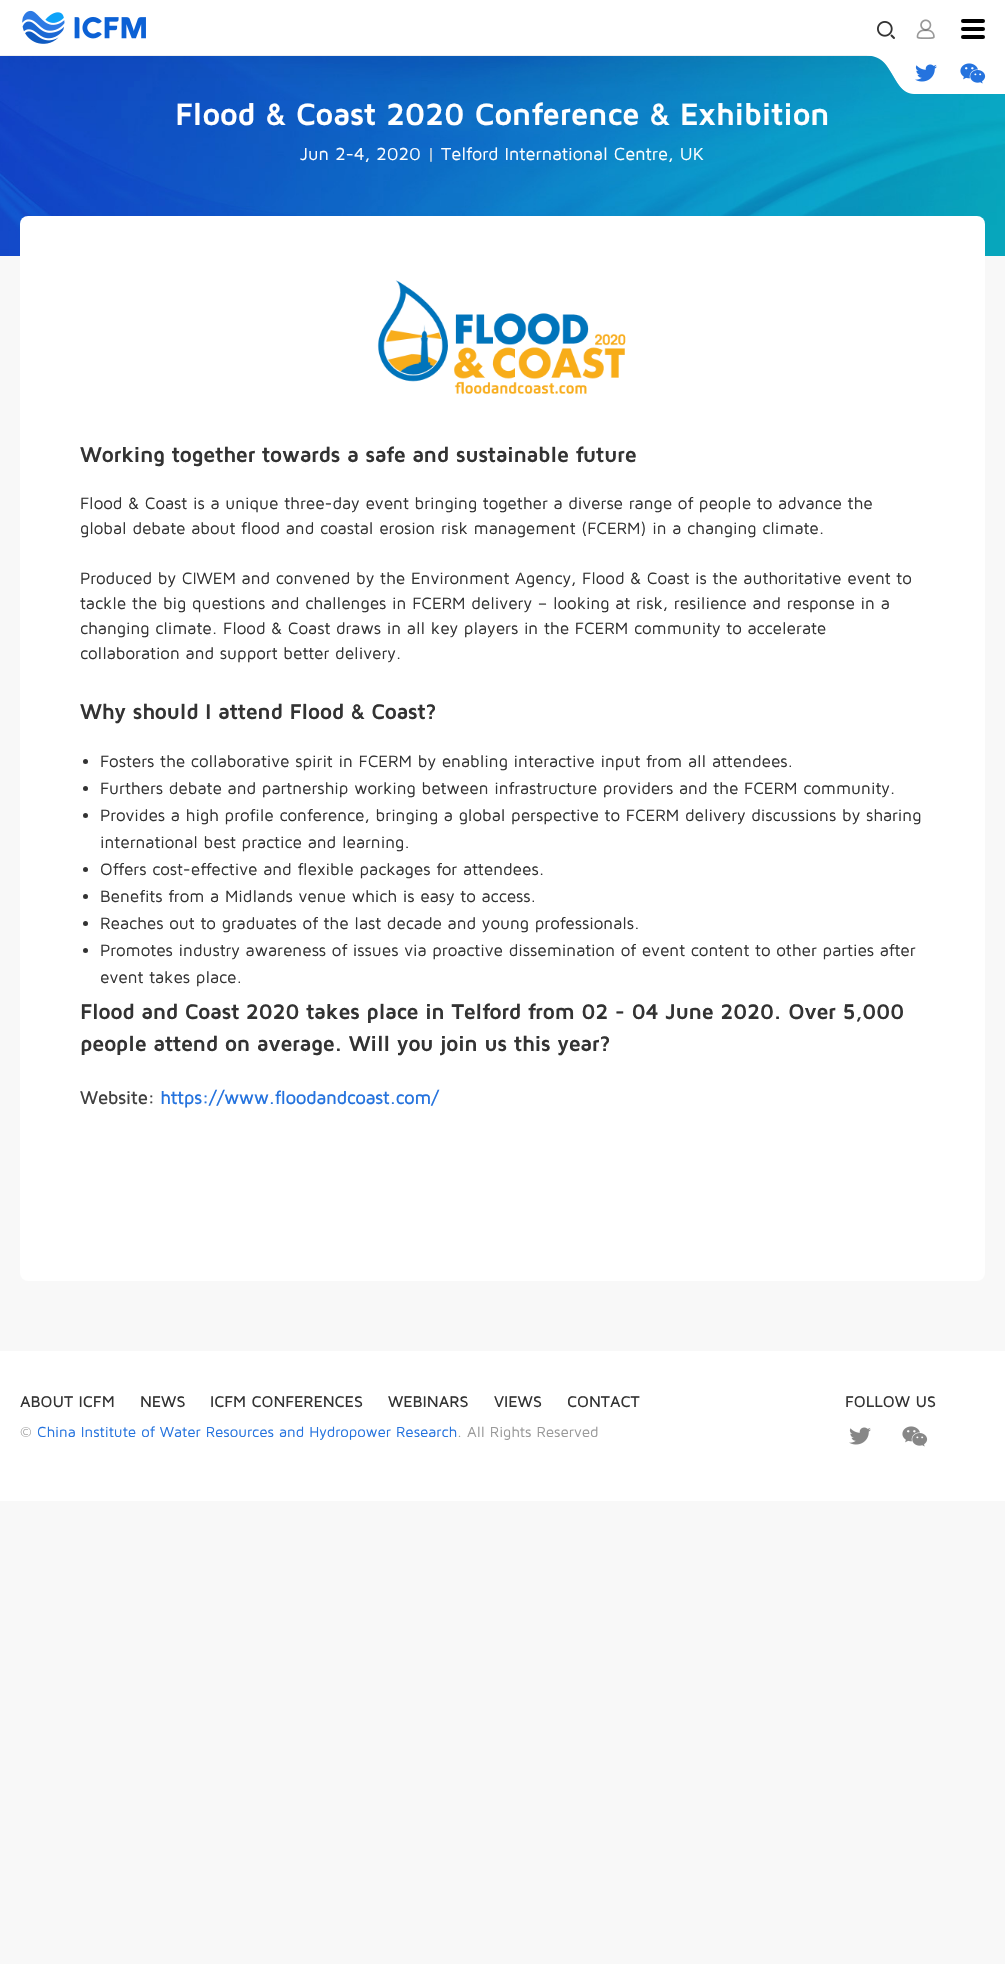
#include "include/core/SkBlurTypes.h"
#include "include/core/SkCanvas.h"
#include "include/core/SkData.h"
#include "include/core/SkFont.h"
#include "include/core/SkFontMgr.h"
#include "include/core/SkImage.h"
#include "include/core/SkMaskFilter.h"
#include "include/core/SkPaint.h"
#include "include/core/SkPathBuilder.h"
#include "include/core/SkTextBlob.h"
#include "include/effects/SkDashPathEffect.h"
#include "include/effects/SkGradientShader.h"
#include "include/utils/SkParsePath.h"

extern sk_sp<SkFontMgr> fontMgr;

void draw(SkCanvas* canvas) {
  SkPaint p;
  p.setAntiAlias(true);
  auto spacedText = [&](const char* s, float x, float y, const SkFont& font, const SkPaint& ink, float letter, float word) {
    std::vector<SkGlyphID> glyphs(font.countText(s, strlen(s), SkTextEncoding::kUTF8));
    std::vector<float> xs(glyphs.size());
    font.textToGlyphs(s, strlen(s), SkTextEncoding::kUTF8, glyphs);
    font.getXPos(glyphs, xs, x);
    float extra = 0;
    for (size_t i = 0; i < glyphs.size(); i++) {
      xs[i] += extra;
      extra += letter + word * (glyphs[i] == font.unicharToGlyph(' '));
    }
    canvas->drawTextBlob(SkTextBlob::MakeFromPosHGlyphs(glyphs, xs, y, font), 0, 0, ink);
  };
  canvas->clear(SkColorSetRGB(248, 248, 248));
  canvas->drawImageRect(SkImages::DeferredFromEncodedData(SkData::MakeFromFileName("images/7.png")), SkRect::MakeLTRB(0, 56, 1005, 256), SkSamplingOptions());
  p.setColor(SkColorSetARGB(18, 0, 0, 0));
  p.setMaskFilter(SkMaskFilter::MakeBlur(kNormal_SkBlurStyle, 30));
  canvas->drawRect(SkRect::MakeLTRB(0, 0, 1005, 56), p);
  p.setMaskFilter(nullptr);
  p.setColor(SK_ColorWHITE);
  canvas->drawRect(SkRect::MakeLTRB(0, 0, 1005, 55), p);
  p.setColor(SkColorSetRGB(239, 239, 239));
  canvas->drawRect(SkRect::MakeLTRB(0, 55, 22, 56), p);
  canvas->drawImageRect(SkImages::DeferredFromEncodedData(SkData::MakeFromFileName("images/1.png")), SkRect::MakeLTRB(22, 10, 146, 44), SkSamplingOptions());
  canvas->drawImageRect(SkImages::DeferredFromEncodedData(SkData::MakeFromFileName("images/2.png")), SkRect::MakeLTRB(877, 21, 895, 39), SkSamplingOptions());
  canvas->drawImageRect(SkImages::DeferredFromEncodedData(SkData::MakeFromFileName("images/3.png")), SkRect::MakeLTRB(916, 19, 935, 39), SkSamplingOptions());
  p.setColor(SK_ColorBLACK);
  canvas->drawRoundRect(SkRect::MakeLTRB(961, 27, 985, 31), 2, 2, p);
  canvas->drawRoundRect(SkRect::MakeLTRB(961, 19, 985, 23), 2, 2, p);
  canvas->drawRoundRect(SkRect::MakeLTRB(961, 35, 985, 39), 2, 2, p);
  canvas->drawImageRect(SkImages::DeferredFromEncodedData(SkData::MakeFromFileName("images/4.png")), SkRect::MakeLTRB(867, 55, 1005, 94), SkSamplingOptions());
  canvas->drawImageRect(SkImages::DeferredFromEncodedData(SkData::MakeFromFileName("images/5.png")), SkRect::MakeLTRB(915, 64, 937, 82), SkSamplingOptions());
  canvas->drawImageRect(SkImages::DeferredFromEncodedData(SkData::MakeFromFileName("images/6.png")), SkRect::MakeLTRB(960, 63, 986, 84), SkSamplingOptions());
  p.setColor(SK_ColorWHITE);
  canvas->drawRoundRect(SkRect::MakeLTRB(20, 216, 985, 1281), 8, 8, p);
  canvas->drawImageRect(SkImages::DeferredFromEncodedData(SkData::MakeFromFileName("images/8.png")), SkRect::MakeLTRB(377, 280, 626, 395), SkSamplingOptions());
  p.setColor(SkColorSetRGB(51, 51, 51));
  canvas->drawCircle(85.5f, 761.5f, 2.5f, p);
  canvas->drawCircle(85.5f, 788.5f, 2.5f, p);
  canvas->drawCircle(85.5f, 815.5f, 2.5f, p);
  canvas->drawCircle(85.5f, 869.5f, 2.5f, p);
  canvas->drawCircle(85.5f, 896.5f, 2.5f, p);
  canvas->drawCircle(85.5f, 923.5f, 2.5f, p);
  canvas->drawCircle(85.5f, 950.5f, 2.5f, p);
  p.setColor(SK_ColorWHITE);
  canvas->drawRect(SkRect::MakeLTRB(0, 1351, 1005, 1501), p);
  canvas->drawImageRect(SkImages::DeferredFromEncodedData(SkData::MakeFromFileName("images/9.png")), SkRect::MakeLTRB(849, 1427, 871, 1445), SkSamplingOptions());
  canvas->drawImageRect(SkImages::DeferredFromEncodedData(SkData::MakeFromFileName("images/10.png")), SkRect::MakeLTRB(902, 1426, 928, 1447), SkSamplingOptions());
  SkFont font1(fontMgr->matchFamilyStyle("Maven Pro", SkFontStyle::Bold()), 32);
  font1.setSubpixel(true);
  spacedText("Flood & Coast 2020 Conference & Exhibition", 175, 125, font1, p, -0.5f, 0);
  SkFont font2(fontMgr->matchFamilyStyle("Maven Pro", SkFontStyle::Normal()), 18);
  font2.setSubpixel(true);
  canvas->drawString("Jun 2-4, 2020", 300, 160, font2, p);
  p.setColor(SkColorSetRGB(222, 222, 222));
  canvas->drawString("|", 427, 160, font2, p);
  p.setColor(SK_ColorWHITE);
  canvas->drawString("Telford International Centre, UK", 441, 160, font2, p);
  SkFont font3(fontMgr->matchFamilyStyle("Maven Pro", SkFontStyle::Bold()), 22);
  font3.setSubpixel(true);
  p.setColor(SkColorSetRGB(51, 51, 51));
  spacedText("Working together towards a safe and sustainable future", 80, 462, font3, p, -0.5f, 0);
  SkFont font4(fontMgr->matchFamilyStyle("Maven Pro", SkFontStyle::Normal()), 17);
  font4.setSubpixel(true);
  canvas->drawString("Flood & Coast is a unique three-day event bringing together a diverse range of people to advance the", 80, 509, font4, p);
  canvas->drawString("global debate about flood and coastal erosion risk management (FCERM) in a changing climate.", 80, 534, font4, p);
  canvas->drawString("Produced by CIWEM and convened by the Environment Agency, Flood & Coast is the authoritative event to", 80, 584, font4, p);
  canvas->drawString("tackle the big questions and challenges in FCERM delivery – looking at risk, resilience and response in a", 80, 609, font4, p);
  canvas->drawString("changing climate. Flood & Coast draws in all key players in the FCERM community to accelerate", 80, 634, font4, p);
  canvas->drawString("collaboration and support better delivery.", 80, 659, font4, p);
  spacedText("Why should I attend Flood & Coast?", 80, 719, font3, p, -0.5f, 0);
  canvas->drawString("Fosters the collaborative spirit in FCERM by enabling interactive input from all attendees.", 100, 767, font4, p);
  canvas->drawString("Furthers debate and partnership working between infrastructure providers and the FCERM community.", 100, 794, font4, p);
  canvas->drawString("Provides a high profile conference, bringing a global perspective to FCERM delivery discussions by sharing", 100, 821, font4, p);
  canvas->drawString("international best practice and learning.", 100, 848, font4, p);
  canvas->drawString("Offers cost-effective and flexible packages for attendees.", 100, 875, font4, p);
  canvas->drawString("Benefits from a Midlands venue which is easy to access.", 100, 902, font4, p);
  canvas->drawString("Reaches out to graduates of the last decade and young professionals.", 100, 929, font4, p);
  canvas->drawString("Promotes industry awareness of issues via proactive dissemination of event content to other parties after", 100, 956, font4, p);
  canvas->drawString("event takes place.", 100, 983, font4, p);
  spacedText("Flood and Coast 2020 takes place in Telford from 02 - 04 June 2020. Over 5,000", 80, 1019, font3, p, -0.5f, 0);
  spacedText("people attend on average. Will you join us this year?", 80, 1051, font3, p, -0.5f, 0);
  SkFont font5(fontMgr->matchFamilyStyle("Maven Pro", SkFontStyle(500, SkFontStyle::kNormal_Width, SkFontStyle::kUpright_Slant)), 19);
  font5.setSubpixel(true);
  p.setColor(SkColorSetRGB(64, 64, 64));
  spacedText("Website:", 80, 1104, font5, p, -0.5f, 0);
  p.setColor(SkColorSetRGB(37, 115, 222));
  spacedText("https://www.floodandcoast.com/", 160, 1104, font5, p, -0.5f, 0);
  SkFont font6(fontMgr->matchFamilyStyle("Maven Pro", SkFontStyle(500, SkFontStyle::kNormal_Width, SkFontStyle::kUpright_Slant)), 16);
  font6.setSubpixel(true);
  p.setColor(SkColorSetRGB(51, 51, 51));
  canvas->drawString("ABOUT ICFM", 20, 1407, font6, p);
  canvas->drawString("NEWS", 140, 1407, font6, p);
  canvas->drawString("ICFM CONFERENCES", 210, 1407, font6, p);
  canvas->drawString("WEBINARS", 388, 1407, font6, p);
  canvas->drawString("VIEWS", 494, 1407, font6, p);
  canvas->drawString("CONTACT", 567, 1407, font6, p);
  SkFont font7(fontMgr->matchFamilyStyle("Maven Pro", SkFontStyle::Normal()), 15);
  font7.setSubpixel(true);
  p.setColor(SkColorSetRGB(153, 153, 153));
  canvas->drawString("©", 20, 1437, font7, p);
  p.setColor(SkColorSetRGB(37, 115, 222));
  canvas->drawString("China Institute of Water Resources and Hydropower Research", 37, 1437, font7, p);
  p.setColor(SkColorSetRGB(153, 153, 153));
  canvas->drawString(". All Rights Reserved", 457, 1437, font7, p);
  p.setColor(SkColorSetRGB(51, 51, 51));
  canvas->drawString("FOLLOW US", 845, 1407, font6, p);
}
